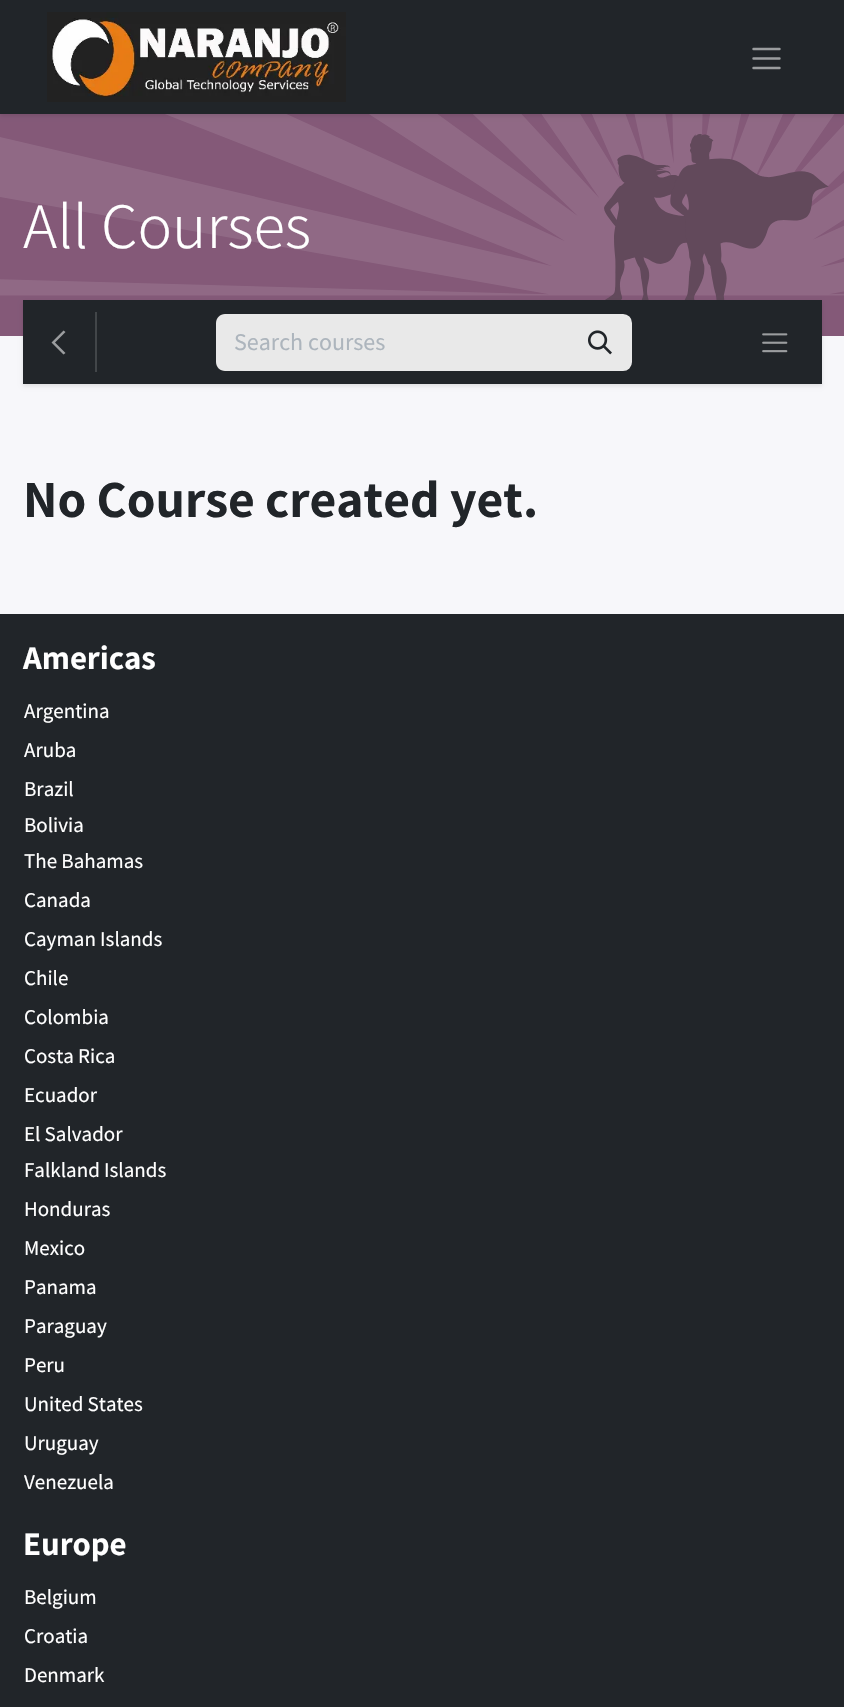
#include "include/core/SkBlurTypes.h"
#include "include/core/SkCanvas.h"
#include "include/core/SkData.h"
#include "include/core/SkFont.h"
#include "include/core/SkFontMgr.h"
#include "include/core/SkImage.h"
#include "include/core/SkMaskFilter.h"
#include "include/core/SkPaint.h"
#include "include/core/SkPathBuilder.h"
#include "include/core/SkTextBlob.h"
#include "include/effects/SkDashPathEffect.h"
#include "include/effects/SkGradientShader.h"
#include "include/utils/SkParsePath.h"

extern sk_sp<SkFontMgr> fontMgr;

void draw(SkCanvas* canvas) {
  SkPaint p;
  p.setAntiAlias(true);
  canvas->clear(SkColorSetRGB(247, 247, 250));
  canvas->drawImageRect(SkImages::DeferredFromEncodedData(SkData::MakeFromFileName("images/2.png")), SkRect::MakeLTRB(0, 114, 844, 336), SkSamplingOptions());
  p.setColor(SkColorSetARGB(26, 0, 0, 0));
  p.setMaskFilter(SkMaskFilter::MakeBlur(kNormal_SkBlurStyle, 2));
  canvas->drawRect(SkRect::MakeLTRB(0, 2, 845, 116), p);
  p.setMaskFilter(nullptr);
  p.setColor(SkColorSetRGB(33, 37, 41));
  canvas->drawRect(SkRect::MakeLTRB(0, 0, 844, 114), p);
  canvas->drawImageRect(SkImages::DeferredFromEncodedData(SkData::MakeFromFileName("images/1.png")), SkRect::MakeLTRB(47, 12, 346, 102), SkSamplingOptions());
  p.setStyle(SkPaint::kStroke_Style);
  p.setStrokeWidth(2.4f);
  p.setStrokeCap(SkPaint::kRound_Cap);
  p.setColor(SkColorSetRGB(155, 157, 159));
  canvas->drawPath(SkPathBuilder().moveTo(753.5f, 49).lineTo(779.5f, 49).moveTo(753.5f, 58.5f).lineTo(779.5f, 58.5f).moveTo(753.5f, 68).lineTo(779.5f, 68).detach(), p);
  p.setStyle(SkPaint::kFill_Style);
  p.setColor(SkColorSetARGB(26, 0, 0, 0));
  p.setMaskFilter(SkMaskFilter::MakeBlur(kNormal_SkBlurStyle, 2));
  canvas->drawRect(SkRect::MakeLTRB(23, 302, 822, 386), p);
  p.setMaskFilter(nullptr);
  p.setColor(SkColorSetRGB(33, 37, 41));
  canvas->drawRect(SkRect::MakeLTRB(23, 300, 822, 384), p);
  p.setColor(SkColorSetRGB(66, 70, 73));
  canvas->drawRect(SkRect::MakeLTRB(95, 312, 97, 372), p);
  p.setColor(SkColorSetRGB(155, 157, 159));
  canvas->drawPath(SkPathBuilder().moveTo(51.5f, 342.5f).lineTo(63.5f, 330.5f).lineTo(65.5f, 332).lineTo(55, 342.5f).lineTo(65.5f, 353).lineTo(63.5f, 354.5f).close().detach(), p);
  p.setColor(SkColorSetRGB(233, 233, 233));
  canvas->drawPath(SkPathBuilder().moveTo(225, 314).lineTo(570, 314).lineTo(570, 371).lineTo(225, 371).cubicTo(220, 371, 216, 367, 216, 362).lineTo(216, 323).cubicTo(216, 318, 220, 314, 225, 314).close().detach(), p);
  canvas->drawPath(SkPathBuilder().moveTo(570, 315).lineTo(623, 315).cubicTo(627.5f, 315, 631, 318.5f, 631, 323).lineTo(631, 362).cubicTo(631, 366.5f, 627.5f, 370, 623, 370).lineTo(570, 370).close().detach(), p);
  p.setStyle(SkPaint::kStroke_Style);
  p.setStrokeWidth(2);
  p.setStrokeCap(SkPaint::kButt_Cap);
  canvas->drawPath(SkPathBuilder().moveTo(570, 315).lineTo(623, 315).cubicTo(627.5f, 315, 631, 318.5f, 631, 323).lineTo(631, 362).cubicTo(631, 366.5f, 627.5f, 370, 623, 370).lineTo(570, 370).close().detach(), p);
  canvas->drawImageRect(SkImages::DeferredFromEncodedData(SkData::MakeFromFileName("images/3.png")), SkRect::MakeLTRB(588, 330, 612, 355), SkSamplingOptions());
  canvas->drawImageRect(SkImages::DeferredFromEncodedData(SkData::MakeFromFileName("images/4.png")), SkRect::MakeLTRB(762, 333, 788, 353), SkSamplingOptions());
  p.setStyle(SkPaint::kFill_Style);
  p.setColor(SkColorSetRGB(33, 37, 41));
  canvas->drawRect(SkRect::MakeLTRB(0, 614, 844, 1707), p);
  SkFont font1(fontMgr->matchFamilyStyle("Assistant", SkFontStyle(300, SkFontStyle::kNormal_Width, SkFontStyle::kUpright_Slant)), 64.5f);
  font1.setSubpixel(true);
  p.setColor(SK_ColorWHITE);
  canvas->drawString("All Courses", 23, 248, font1, p);
  SkFont font2(fontMgr->matchFamilyStyle("Source Sans Pro", SkFontStyle::Normal()), 24);
  font2.setSubpixel(true);
  p.setColor(SkColorSetRGB(173, 181, 189));
  canvas->drawString("Search courses", 234, 350, font2, p);
  SkFont font3(fontMgr->matchFamilyStyle("Assistant", SkFontStyle::Bold()), 52);
  font3.setSubpixel(true);
  p.setColor(SkColorSetRGB(33, 37, 41));
  canvas->drawString("No Course created yet.", 23, 517, font3, p);
  SkFont font4(fontMgr->matchFamilyStyle("Assistant", SkFontStyle::Bold()), 33);
  font4.setSubpixel(true);
  p.setColor(SK_ColorWHITE);
  canvas->drawString("Americas", 23, 669, font4, p);
  SkFont font5(fontMgr->matchFamilyStyle("Source Sans Pro", SkFontStyle::Normal()), 21);
  font5.setSubpixel(true);
  canvas->drawString("Argentina", 24, 718, font5, p);
  canvas->drawString("Aruba", 24, 757, font5, p);
  canvas->drawString("Brazil", 24, 796, font5, p);
  canvas->drawString("Bolivia", 24, 832, font5, p);
  canvas->drawString("The Bahamas", 24, 868, font5, p);
  canvas->drawString("Canada", 24, 907, font5, p);
  canvas->drawString("Cayman Islands", 24, 946, font5, p);
  canvas->drawString("Chile", 24, 985, font5, p);
  canvas->drawString("Colombia", 24, 1024, font5, p);
  canvas->drawString("Costa Rica", 24, 1063, font5, p);
  canvas->drawString("Ecuador", 24, 1102, font5, p);
  canvas->drawString("El Salvador", 24, 1141, font5, p);
  canvas->drawString("Falkland Islands", 24, 1177, font5, p);
  canvas->drawString("Honduras", 24, 1216, font5, p);
  canvas->drawString("Mexico", 24, 1255, font5, p);
  canvas->drawString("Panama", 24, 1294, font5, p);
  canvas->drawString("Paraguay", 24, 1333, font5, p);
  canvas->drawString("Peru", 24, 1372, font5, p);
  canvas->drawString("United States", 24, 1411, font5, p);
  canvas->drawString("Uruguay", 24, 1450, font5, p);
  canvas->drawString("Venezuela", 24, 1489, font5, p);
  canvas->drawString("Europe", 23, 1555, font4, p);
  canvas->drawString("Belgium", 24, 1604, font5, p);
  canvas->drawString("Croatia", 24, 1643, font5, p);
  canvas->drawString("Denmark", 24, 1682, font5, p);
}
